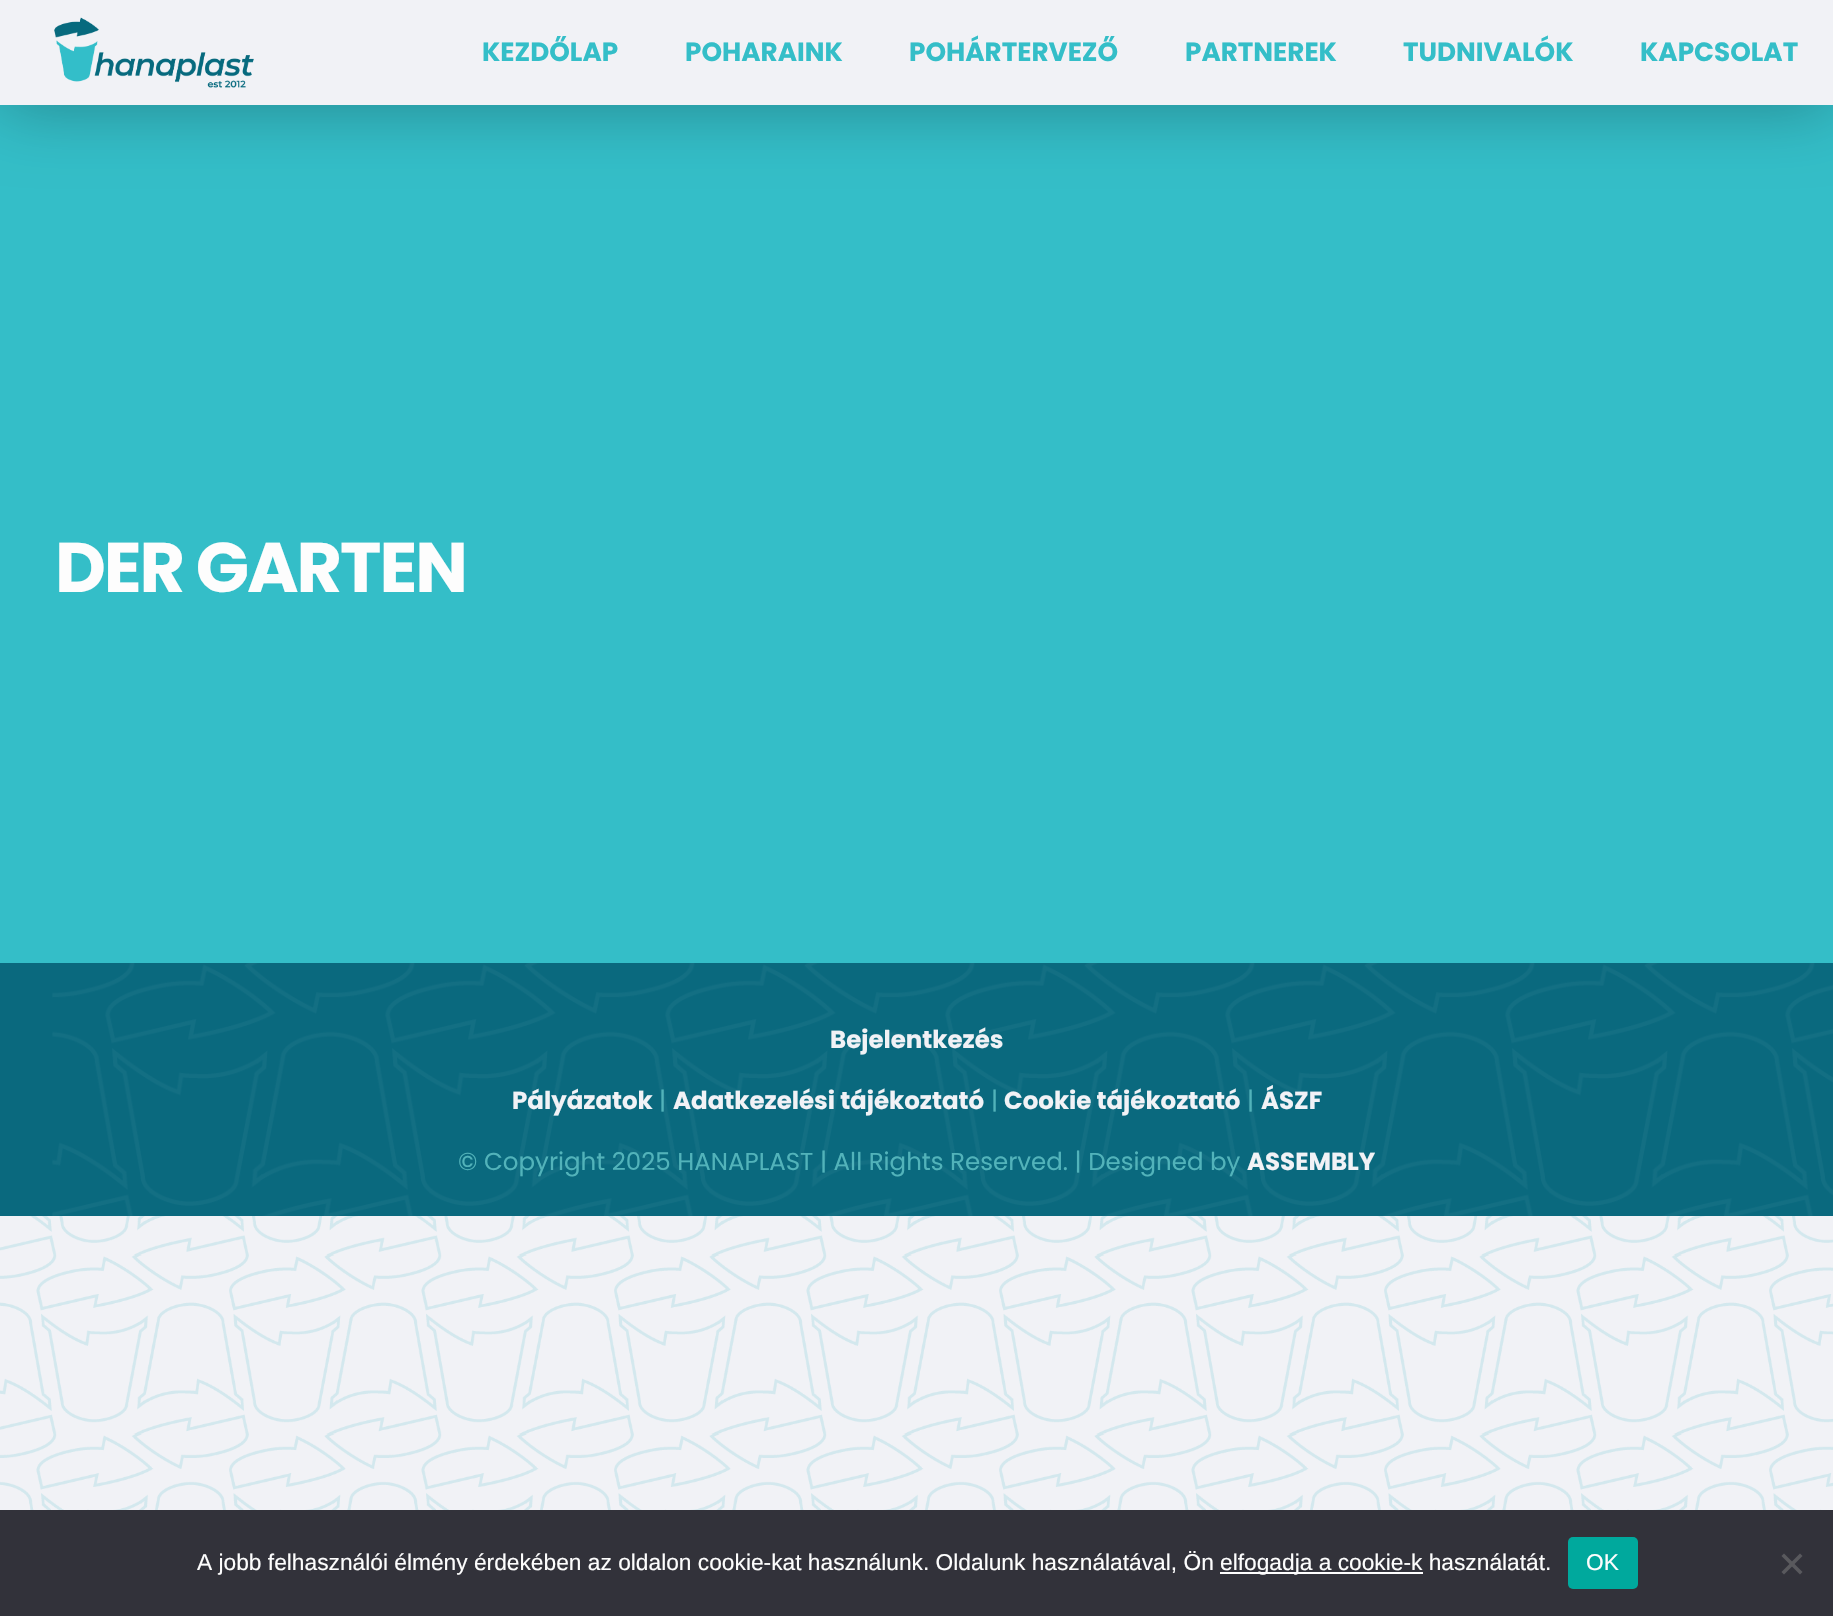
#include "include/core/SkBlurTypes.h"
#include "include/core/SkCanvas.h"
#include "include/core/SkData.h"
#include "include/core/SkFont.h"
#include "include/core/SkFontMgr.h"
#include "include/core/SkImage.h"
#include "include/core/SkMaskFilter.h"
#include "include/core/SkPaint.h"
#include "include/core/SkPathBuilder.h"
#include "include/core/SkTextBlob.h"
#include "include/effects/SkDashPathEffect.h"
#include "include/effects/SkGradientShader.h"
#include "include/utils/SkParsePath.h"

extern sk_sp<SkFontMgr> fontMgr;

void draw(SkCanvas* canvas) {
  SkPaint p;
  p.setAntiAlias(true);
  auto spacedText = [&](const char* s, float x, float y, const SkFont& font, const SkPaint& ink, float letter, float word) {
    std::vector<SkGlyphID> glyphs(font.countText(s, strlen(s), SkTextEncoding::kUTF8));
    std::vector<float> xs(glyphs.size());
    font.textToGlyphs(s, strlen(s), SkTextEncoding::kUTF8, glyphs);
    font.getXPos(glyphs, xs, x);
    float extra = 0;
    for (size_t i = 0; i < glyphs.size(); i++) {
      xs[i] += extra;
      extra += letter + word * (glyphs[i] == font.unicharToGlyph(' '));
    }
    canvas->drawTextBlob(SkTextBlob::MakeFromPosHGlyphs(glyphs, xs, y, font), 0, 0, ink);
  };
  canvas->clear(SkColorSetRGB(241, 242, 246));
  p.setColor(SkColorSetRGB(52, 190, 200));
  canvas->drawRect(SkRect::MakeLTRB(0, 105, 1833, 963), p);
  p.setColor(SkColorSetARGB(77, 0, 0, 0));
  p.setMaskFilter(SkMaskFilter::MakeBlur(kNormal_SkBlurStyle, 35));
  canvas->drawRect(SkRect::MakeLTRB(0, 0, 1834, 105), p);
  p.setMaskFilter(nullptr);
  p.setColor(SkColorSetRGB(241, 242, 246));
  canvas->drawRect(SkRect::MakeLTRB(0, 0, 1833, 105), p);
  canvas->drawImageRect(SkImages::DeferredFromEncodedData(SkData::MakeFromFileName("images/1.png")), SkRect::MakeLTRB(54, 17, 254, 88), SkSamplingOptions());
  p.setColor(SkColorSetRGB(10, 105, 126));
  canvas->drawRect(SkRect::MakeLTRB(0, 963, 1833, 1216), p);
  canvas->drawImageRect(SkImages::DeferredFromEncodedData(SkData::MakeFromFileName("images/2.png")), SkRect::MakeLTRB(52, 963, 1833, 1216), SkSamplingOptions());
  canvas->drawImageRect(SkImages::DeferredFromEncodedData(SkData::MakeFromFileName("images/3.png")), SkRect::MakeLTRB(0, 1216, 1833, 1510), SkSamplingOptions());
  p.setColor(SkColorSetRGB(50, 50, 58));
  canvas->drawRect(SkRect::MakeLTRB(0, 1510, 1833, 1616), p);
  p.setColor(SK_ColorWHITE);
  canvas->drawRect(SkRect::MakeLTRB(1220, 1572, 1423, 1574), p);
  p.setColor(SkColorSetRGB(0, 169, 157));
  canvas->drawRoundRect(SkRect::MakeLTRB(1568, 1537, 1638, 1589), 5, 5, p);
  p.setColor(SkColorSetRGB(89, 89, 93));
  canvas->drawPath(SkPathBuilder().moveTo(1800, 1553.5f).lineTo(1802.5f, 1556).lineTo(1784, 1574.5f).lineTo(1781.5f, 1572).close().detach(), p);
  canvas->drawPath(SkPathBuilder().moveTo(1781.5f, 1556).lineTo(1784, 1553.5f).lineTo(1802.5f, 1572).lineTo(1800, 1574.5f).close().detach(), p);
  SkFont font1(fontMgr->matchFamilyStyle("Poppins", SkFontStyle::Bold()), 26.25f);
  font1.setSubpixel(true);
  p.setColor(SkColorSetRGB(52, 190, 200));
  canvas->drawString("KEZDŐLAP", 482, 61, font1, p);
  canvas->drawString("POHARAINK", 685, 61, font1, p);
  canvas->drawString("POHÁRTERVEZŐ", 909, 61, font1, p);
  canvas->drawString("PARTNEREK", 1185, 61, font1, p);
  canvas->drawString("TUDNIVALÓK", 1403, 61, font1, p);
  canvas->drawString("KAPCSOLAT", 1640, 61, font1, p);
  SkFont font2(fontMgr->matchFamilyStyle("Poppins", SkFontStyle::Bold()), 70);
  font2.setSubpixel(true);
  p.setColor(SkColorSetRGB(253, 253, 253));
  spacedText("DER GARTEN", 55, 592, font2, p, -2.1f, 0);
  SkFont font3(fontMgr->matchFamilyStyle("Poppins", SkFontStyle::Bold()), 24.5f);
  font3.setSubpixel(true);
  p.setColor(SkColorSetRGB(241, 242, 246));
  canvas->drawString("Bejelentkezés", 830, 1048, font3, p);
  canvas->drawString("Pályázatok", 512, 1109, font3, p);
  SkFont font4(fontMgr->matchFamilyStyle("Poppins", SkFontStyle::Normal()), 24.5f);
  font4.setSubpixel(true);
  p.setColor(SkColorSetRGB(82, 179, 186));
  canvas->drawString("|", 659, 1109, font4, p);
  p.setColor(SkColorSetRGB(241, 242, 246));
  canvas->drawString("Adatkezelési tájékoztató", 673, 1109, font3, p);
  p.setColor(SkColorSetRGB(82, 179, 186));
  canvas->drawString("|", 991, 1109, font4, p);
  p.setColor(SkColorSetRGB(241, 242, 246));
  canvas->drawString("Cookie tájékoztató", 1004, 1109, font3, p);
  p.setColor(SkColorSetRGB(82, 179, 186));
  canvas->drawString("|", 1247, 1109, font4, p);
  p.setColor(SkColorSetRGB(241, 242, 246));
  canvas->drawString("ÁSZF", 1261, 1109, font3, p);
  p.setColor(SkColorSetRGB(82, 179, 186));
  canvas->drawString("© Copyright 2025 HANAPLAST | All Rights Reserved. | Designed by", 458, 1170, font4, p);
  p.setColor(SkColorSetRGB(241, 242, 246));
  canvas->drawString("ASSEMBLY", 1247, 1170, font3, p);
  SkFont font5(fontMgr->matchFamilyStyle("Liberation Sans", SkFontStyle::Normal()), 22.75f);
  font5.setSubpixel(true);
  p.setColor(SkColorSetRGB(253, 253, 253));
  canvas->drawString("A jobb felhasználói élmény érdekében az oldalon cookie-kat használunk. Oldalunk használatával, Ön", 197, 1570, font5, p);
  canvas->drawString("elfogadja a cookie-k használatát.", 1220, 1570, font5, p);
  canvas->drawString("OK", 1586, 1570, font5, p);
}
